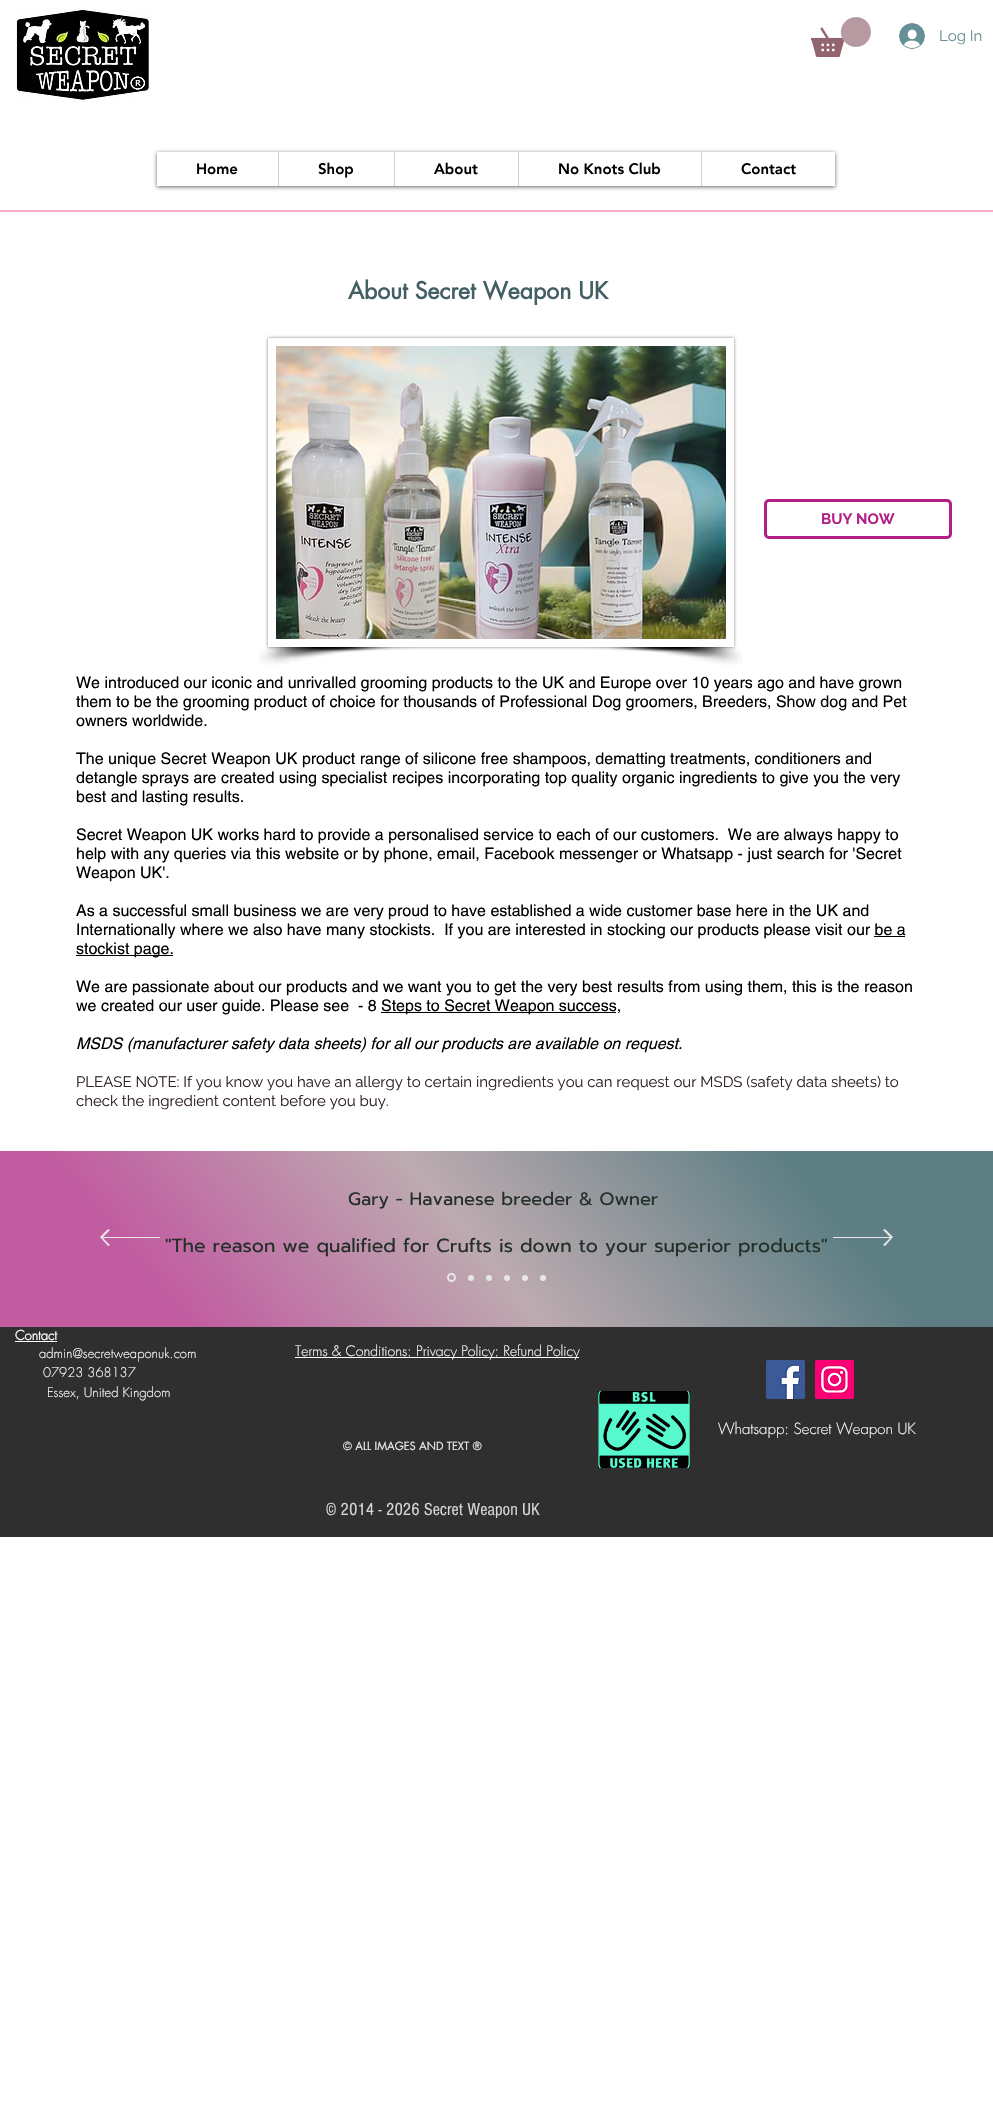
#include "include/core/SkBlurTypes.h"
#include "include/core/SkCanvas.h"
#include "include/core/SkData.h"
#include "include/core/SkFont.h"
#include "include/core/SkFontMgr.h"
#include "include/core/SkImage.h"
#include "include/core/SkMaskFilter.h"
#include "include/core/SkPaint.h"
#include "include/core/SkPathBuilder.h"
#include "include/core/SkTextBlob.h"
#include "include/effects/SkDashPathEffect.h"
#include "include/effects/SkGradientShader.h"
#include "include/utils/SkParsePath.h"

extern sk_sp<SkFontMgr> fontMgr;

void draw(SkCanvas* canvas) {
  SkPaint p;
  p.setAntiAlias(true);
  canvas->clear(SK_ColorWHITE);
  canvas->drawImageRect(SkImages::DeferredFromEncodedData(SkData::MakeFromFileName("images/1.png")), SkRect::MakeLTRB(15, 6, 153, 102), SkSamplingOptions());
  canvas->drawImageRect(SkImages::DeferredFromEncodedData(SkData::MakeFromFileName("images/2.png")), SkRect::MakeLTRB(811, 17, 871, 57), SkSamplingOptions());
  canvas->drawImageRect(SkImages::DeferredFromEncodedData(SkData::MakeFromFileName("images/3.png")), SkRect::MakeLTRB(899, 23, 925, 49), SkSamplingOptions());
  canvas->save();
  canvas->clipPath(SkPathBuilder(SkPathFillType::kEvenOdd).moveTo(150, 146).lineTo(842, 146).lineTo(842, 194).lineTo(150, 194).close().moveTo(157, 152).lineTo(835, 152).lineTo(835, 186).lineTo(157, 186).close().detach(), true);
  p.setColor(SkColorSetARGB(153, 0, 0, 0));
  p.setMaskFilter(SkMaskFilter::MakeBlur(kNormal_SkBlurStyle, 2));
  canvas->drawRect(SkRect::MakeLTRB(157, 153, 835, 187), p);
  p.setMaskFilter(nullptr);
  canvas->restore();
  p.setColor(SkColorSetRGB(208, 208, 208));
  canvas->drawRect(SkRect::MakeLTRB(278, 152, 279, 186), p);
  canvas->drawRect(SkRect::MakeLTRB(394, 152, 395, 186), p);
  canvas->drawRect(SkRect::MakeLTRB(518, 152, 519, 186), p);
  canvas->drawRect(SkRect::MakeLTRB(701, 152, 702, 186), p);
  p.setColor(SkColorSetRGB(251, 174, 200));
  canvas->drawRect(SkRect::MakeLTRB(0, 210, 993, 212), p);
  canvas->save();
  canvas->clipPath(SkPathBuilder(SkPathFillType::kEvenOdd).moveTo(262, 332).lineTo(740, 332).lineTo(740, 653).lineTo(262, 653).close().moveTo(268, 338).lineTo(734, 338).lineTo(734, 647).lineTo(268, 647).close().detach(), true);
  p.setColor(SkColorSetARGB(128, 0, 0, 0));
  p.setMaskFilter(SkMaskFilter::MakeBlur(kNormal_SkBlurStyle, 1.5f));
  canvas->drawRect(SkRect::MakeLTRB(268, 338, 734, 647), p);
  p.setMaskFilter(nullptr);
  canvas->restore();
  canvas->drawImageRect(SkImages::DeferredFromEncodedData(SkData::MakeFromFileName("images/4.png")), SkRect::MakeLTRB(276, 346, 726, 639), SkSamplingOptions());
  canvas->drawImageRect(SkImages::DeferredFromEncodedData(SkData::MakeFromFileName("images/5.png")), SkRect::MakeLTRB(259, 647, 413, 665), SkSamplingOptions());
  canvas->drawImageRect(SkImages::DeferredFromEncodedData(SkData::MakeFromFileName("images/6.png")), SkRect::MakeLTRB(589, 647, 743, 665), SkSamplingOptions());
  p.setStyle(SkPaint::kStroke_Style);
  p.setStrokeWidth(3);
  p.setColor(SkColorSetRGB(178, 32, 135));
  canvas->drawRoundRect(SkRect::MakeLTRB(765.5f, 500.5f, 950.5f, 537.5f), 3.5f, 3.5f, p);
  p.setStyle(SkPaint::kFill_Style);
  p.setColor(SK_ColorBLACK);
  canvas->drawRect(SkRect::MakeLTRB(874, 936, 905, 937), p);
  canvas->drawRect(SkRect::MakeLTRB(76, 955, 173, 956), p);
  canvas->drawRect(SkRect::MakeLTRB(381, 1012, 616, 1013), p);
  {
    const SkColor colors[] = {SkColorSetRGB(193, 92, 161), SkColorSetRGB(189, 171, 176), SkColorSetRGB(93, 127, 132)};
    const float stops[] = {0.17f, 0.48f, 0.81f};
    const SkPoint ends[] = {{158, 1518}, {835, 960}};
    p.setShader(SkGradientShader::MakeLinear(ends, colors, stops, 3, SkTileMode::kClamp));
    p.setAlpha(255);
  }
  canvas->drawRect(SkRect::MakeLTRB(0, 1151, 993, 1327), p);
  p.setShader(nullptr);
  p.setColor(SkColorSetRGB(232, 230, 230));
  canvas->drawPath(SkPathBuilder().moveTo(108, 1229).lineTo(110, 1230).lineTo(103, 1237).lineTo(160, 1237).lineTo(160, 1238).lineTo(103, 1238).lineTo(110, 1245).lineTo(108, 1246).lineTo(100, 1237).close().detach(), p);
  canvas->drawPath(SkPathBuilder().moveTo(885, 1229).lineTo(883, 1230).lineTo(890, 1237).lineTo(833, 1237).lineTo(833, 1238).lineTo(890, 1238).lineTo(883, 1245).lineTo(885, 1246).lineTo(893, 1237).close().detach(), p);
  p.setStyle(SkPaint::kStroke_Style);
  p.setStrokeWidth(2);
  canvas->drawCircle(451.5f, 1277.5f, 3.5f, p);
  p.setStyle(SkPaint::kFill_Style);
  canvas->drawCircle(471, 1278, 3, p);
  canvas->drawCircle(489, 1278, 3, p);
  canvas->drawCircle(507, 1278, 3, p);
  canvas->drawCircle(525, 1278, 3, p);
  canvas->drawCircle(543, 1278, 3, p);
  p.setColor(SkColorSetRGB(47, 47, 47));
  canvas->drawRect(SkRect::MakeLTRB(0, 1327, 993, 1537), p);
  p.setColor(SK_ColorWHITE);
  canvas->drawRect(SkRect::MakeLTRB(15, 1341, 57, 1342), p);
  canvas->drawRect(SkRect::MakeLTRB(295, 1357, 579, 1358), p);
  canvas->drawImageRect(SkImages::DeferredFromEncodedData(SkData::MakeFromFileName("images/7.png")), SkRect::MakeLTRB(766, 1360, 805, 1399), SkSamplingOptions());
  canvas->drawImageRect(SkImages::DeferredFromEncodedData(SkData::MakeFromFileName("images/8.png")), SkRect::MakeLTRB(815, 1360, 854, 1399), SkSamplingOptions());
  canvas->drawImageRect(SkImages::DeferredFromEncodedData(SkData::MakeFromFileName("images/9.png")), SkRect::MakeLTRB(598, 1391, 690, 1468), SkSamplingOptions());
  SkFont font1(fontMgr->matchFamilyStyle("Raleway", SkFontStyle::Normal()), 15);
  font1.setSubpixel(true);
  p.setColor(SkColorSetRGB(102, 143, 150));
  canvas->drawString("Log In", 939, 41, font1, p);
  SkFont font2(fontMgr->matchFamilyStyle("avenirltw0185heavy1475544", SkFontStyle(900, SkFontStyle::kNormal_Width, SkFontStyle::kUpright_Slant)), 15);
  font2.setSubpixel(true);
  p.setColor(SK_ColorBLACK);
  canvas->drawString("Home", 196, 174, font2, p);
  canvas->drawString("Shop", 318, 174, font2, p);
  canvas->drawString("About", 434, 174, font2, p);
  canvas->drawString("No Knots Club", 558, 174, font2, p);
  canvas->drawString("Contact", 741, 174, font2, p);
  SkFont font3(fontMgr->matchFamilyStyle("futura", SkFontStyle::Bold()), 23);
  font3.setSubpixel(true);
  p.setColor(SkColorSetRGB(68, 95, 100));
  canvas->drawString("About Secret Weapon UK", 348, 299, font3, p);
  SkFont font4(fontMgr->matchFamilyStyle("Raleway", SkFontStyle::Bold()), 15);
  font4.setSubpixel(true);
  p.setColor(SkColorSetRGB(178, 32, 135));
  canvas->drawString("BUY NOW", 821, 524, font4, p);
  SkFont font5(fontMgr->matchFamilyStyle("helvetica", SkFontStyle::Normal()), 16);
  font5.setSubpixel(true);
  p.setColor(SK_ColorBLACK);
  canvas->drawString("We introduced our iconic and unrivalled grooming products to the UK and Europe over 10 years ago and have grown", 76, 688, font5, p);
  canvas->drawString("them to be the grooming product of choice for thousands of Professional Dog groomers, Breeders, Show dog and Pet", 76, 707, font5, p);
  canvas->drawString("owners worldwide.", 76, 726, font5, p);
  canvas->drawString("The unique Secret Weapon UK product range of silicone free shampoos, dematting treatments, conditioners and", 76, 764, font5, p);
  canvas->drawString("detangle sprays are created using specialist recipes incorporating top quality organic ingredients to give you the very", 76, 783, font5, p);
  canvas->drawString("best and lasting results.", 76, 802, font5, p);
  canvas->drawString("Secret Weapon UK works hard to provide a personalised service to each of our customers.  We are always happy to", 76, 840, font5, p);
  canvas->drawString("help with any queries via this website or by phone, email, Facebook messenger or Whatsapp - just search for 'Secret", 76, 859, font5, p);
  canvas->drawString("Weapon UK'.", 76, 878, font5, p);
  canvas->drawString("As a successful small business we are very proud to have established a wide customer base here in the UK and", 76, 916, font5, p);
  canvas->drawString("Internationally where we also have many stockists.  If you are interested in stocking our products please visit our be a", 76, 935, font5, p);
  canvas->drawString("stockist page.", 76, 954, font5, p);
  canvas->drawString("We are passionate about our products and we want you to get the very best results from using them, this is the reason", 76, 992, font5, p);
  canvas->drawString("we created our user guide. Please see  - 8", 76, 1011, font5, p);
  canvas->drawString("Steps to Secret Weapon success,", 381, 1011, font5, p);
  SkFont font6(fontMgr->matchFamilyStyle("helvetica", SkFontStyle::Italic()), 16);
  font6.setSubpixel(true);
  canvas->drawString("MSDS (manufacturer safety data sheets) for all our products are available on request.", 76, 1049, font6, p);
  p.setColor(SkColorSetRGB(48, 33, 37));
  canvas->drawString("PLEASE NOTE: If you know you have an allergy to certain ingredients you can request our MSDS (safety data sheets) to", 76, 1087, font1, p);
  canvas->drawString("check the ingredient content before you buy.", 76, 1106, font1, p);
  SkFont font7(fontMgr->matchFamilyStyle("Prompt", SkFontStyle::Normal()), 18);
  font7.setSubpixel(true);
  p.setColor(SkColorSetRGB(36, 47, 42));
  canvas->drawString("Gary - Havanese breeder & Owner", 348, 1205, font7, p);
  SkFont font8(fontMgr->matchFamilyStyle("Prompt", SkFontStyle::Normal()), 19);
  font8.setSubpixel(true);
  canvas->drawString("\"The reason we qualified for Crufts is down to your superior products\"", 165, 1252, font8, p);
  SkFont font9(fontMgr->matchFamilyStyle("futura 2", SkFontStyle::Bold()), 13);
  font9.setSubpixel(true);
  p.setColor(SK_ColorWHITE);
  canvas->drawString("Contact", 15, 1340, font9, p);
  SkFont font10(fontMgr->matchFamilyStyle("futura", SkFontStyle(300, SkFontStyle::kNormal_Width, SkFontStyle::kUpright_Slant)), 13);
  font10.setSubpixel(true);
  canvas->drawString("admin@secretweaponuk.com", 39, 1358, font10, p);
  canvas->drawString("07923 368137", 43, 1377, font10, p);
  canvas->drawString("Essex, United Kingdom", 47, 1397, font10, p);
  SkFont font11(fontMgr->matchFamilyStyle("futura", SkFontStyle(300, SkFontStyle::kNormal_Width, SkFontStyle::kUpright_Slant)), 14);
  font11.setSubpixel(true);
  canvas->drawString("Terms & Conditions: Privacy Policy: Refund Policy", 295, 1356, font11, p);
  SkFont font12(fontMgr->matchFamilyStyle("futura", SkFontStyle(300, SkFontStyle::kNormal_Width, SkFontStyle::kUpright_Slant)), 15);
  font12.setSubpixel(true);
  canvas->drawString("Whatsapp: Secret Weapon UK", 718, 1434, font12, p);
  SkFont font13(fontMgr->matchFamilyStyle("futura", SkFontStyle::Normal()), 11);
  font13.setSubpixel(true);
  p.setColor(SkColorSetRGB(237, 239, 240));
  canvas->drawString("© ALL IMAGES AND TEXT ®", 343, 1450, font13, p);
  SkFont font14(fontMgr->matchFamilyStyle("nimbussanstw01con", SkFontStyle::Normal()), 18);
  font14.setSubpixel(true);
  p.setColor(SkColorSetRGB(214, 214, 214));
  canvas->drawString("© 2014 - 2026 Secret Weapon UK", 326, 1515, font14, p);
}
